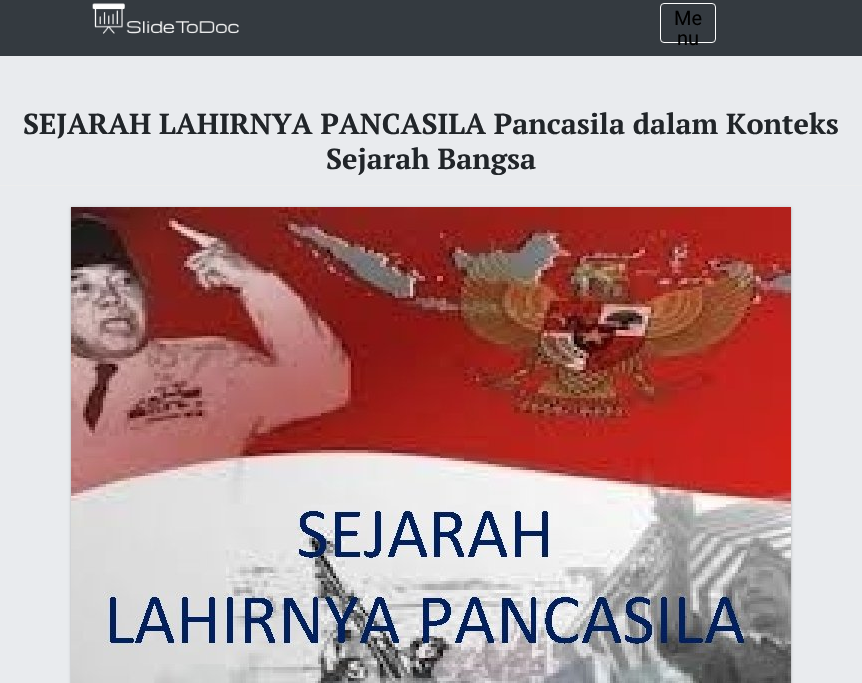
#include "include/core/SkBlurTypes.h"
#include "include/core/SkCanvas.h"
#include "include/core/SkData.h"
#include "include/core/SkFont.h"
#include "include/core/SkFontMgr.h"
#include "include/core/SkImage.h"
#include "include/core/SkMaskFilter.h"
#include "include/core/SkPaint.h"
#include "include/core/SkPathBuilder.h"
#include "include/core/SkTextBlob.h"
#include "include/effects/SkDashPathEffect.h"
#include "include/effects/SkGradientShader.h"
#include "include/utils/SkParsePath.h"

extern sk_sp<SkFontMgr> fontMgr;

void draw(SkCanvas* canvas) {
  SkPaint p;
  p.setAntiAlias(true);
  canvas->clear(SkColorSetRGB(233, 235, 238));
  p.setColor(SkColorSetRGB(52, 58, 64));
  canvas->drawRect(SkRect::MakeLTRB(0, 0, 862, 56), p);
  canvas->drawImageRect(SkImages::DeferredFromEncodedData(SkData::MakeFromFileName("images/1.png")), SkRect::MakeLTRB(92, 3, 239, 34), SkSamplingOptions());
  p.setStyle(SkPaint::kStroke_Style);
  p.setStrokeWidth(1);
  p.setColor(SK_ColorWHITE);
  canvas->drawRoundRect(SkRect::MakeLTRB(660.5f, 3.5f, 715.5f, 42.5f), 3.5f, 3.5f, p);
  p.setStyle(SkPaint::kFill_Style);
  p.setColor(SkColorSetRGB(237, 237, 237));
  canvas->drawRect(SkRect::MakeLTRB(0, 185, 862, 186), p);
  p.setColor(SkColorSetARGB(26, 0, 0, 0));
  p.setMaskFilter(SkMaskFilter::MakeBlur(kNormal_SkBlurStyle, 1.5f));
  canvas->drawRect(SkRect::MakeLTRB(71, 207, 791, 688), p);
  p.setMaskFilter(nullptr);
  p.setColor(SkColorSetARGB(51, 0, 0, 0));
  p.setMaskFilter(SkMaskFilter::MakeBlur(kNormal_SkBlurStyle, 1));
  canvas->drawRect(SkRect::MakeLTRB(71, 208, 791, 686), p);
  p.setMaskFilter(nullptr);
  canvas->drawImageRect(SkImages::DeferredFromEncodedData(SkData::MakeFromFileName("images/2.png")), SkRect::MakeLTRB(71, 207, 791, 683), SkSamplingOptions());
  SkFont font1(fontMgr->matchFamilyStyle("Roboto", SkFontStyle::Normal()), 20);
  font1.setSubpixel(true);
  p.setColor(SK_ColorBLACK);
  canvas->drawString("Me", 674, 25, font1, p);
  canvas->drawString("nu", 677, 45, font1, p);
  SkFont font2(fontMgr->matchFamilyStyle("PT Serif", SkFontStyle::Bold()), 28.8f);
  font2.setSubpixel(true);
  p.setColor(SkColorSetRGB(33, 37, 41));
  canvas->drawString("SEJARAH LAHIRNYA PANCASILA Pancasila dalam Konteks", 23, 134, font2, p);
  canvas->drawString("Sejarah Bangsa", 326, 169, font2, p);
}
